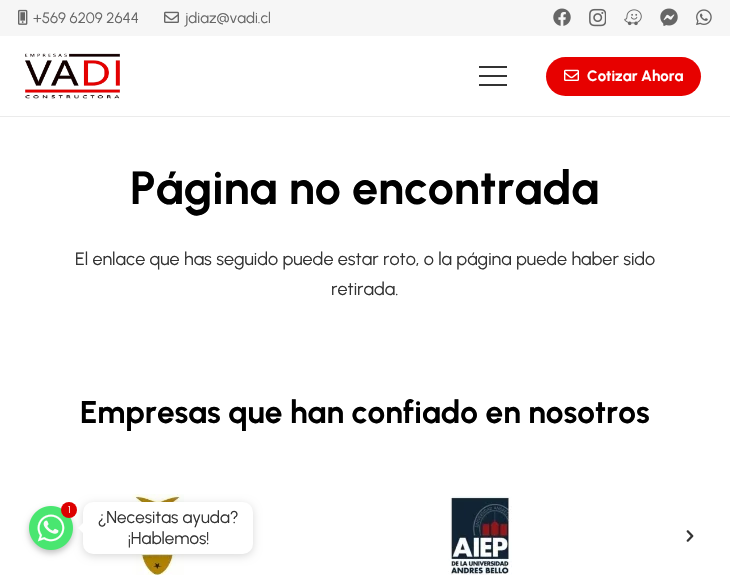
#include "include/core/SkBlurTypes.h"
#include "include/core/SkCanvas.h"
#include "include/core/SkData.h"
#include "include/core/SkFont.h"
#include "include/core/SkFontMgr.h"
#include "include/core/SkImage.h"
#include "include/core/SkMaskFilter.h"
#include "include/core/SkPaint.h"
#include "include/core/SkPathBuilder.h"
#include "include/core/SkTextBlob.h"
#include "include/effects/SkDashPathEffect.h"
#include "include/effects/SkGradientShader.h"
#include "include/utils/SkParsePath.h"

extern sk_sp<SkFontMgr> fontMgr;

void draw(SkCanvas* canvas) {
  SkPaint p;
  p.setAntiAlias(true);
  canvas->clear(SK_ColorWHITE);
  p.setColor(SkColorSetRGB(246, 246, 246));
  canvas->drawRect(SkRect::MakeLTRB(0, 0, 730, 36), p);
  canvas->drawImageRect(SkImages::DeferredFromEncodedData(SkData::MakeFromFileName("images/1.png")), SkRect::MakeLTRB(18, 9, 28, 25), SkSamplingOptions());
  canvas->drawImageRect(SkImages::DeferredFromEncodedData(SkData::MakeFromFileName("images/2.png")), SkRect::MakeLTRB(164, 11, 179, 23), SkSamplingOptions());
  canvas->drawImageRect(SkImages::DeferredFromEncodedData(SkData::MakeFromFileName("images/3.png")), SkRect::MakeLTRB(553, 8, 571, 26), SkSamplingOptions());
  canvas->drawImageRect(SkImages::DeferredFromEncodedData(SkData::MakeFromFileName("images/4.png")), SkRect::MakeLTRB(589, 8, 606, 27), SkSamplingOptions());
  canvas->drawImageRect(SkImages::DeferredFromEncodedData(SkData::MakeFromFileName("images/5.png")), SkRect::MakeLTRB(624, 9, 642, 26), SkSamplingOptions());
  canvas->drawImageRect(SkImages::DeferredFromEncodedData(SkData::MakeFromFileName("images/6.png")), SkRect::MakeLTRB(660, 8, 678, 26), SkSamplingOptions());
  canvas->drawImageRect(SkImages::DeferredFromEncodedData(SkData::MakeFromFileName("images/7.png")), SkRect::MakeLTRB(696, 9, 712, 25), SkSamplingOptions());
  p.setColor(SkColorSetRGB(235, 235, 235));
  canvas->drawRect(SkRect::MakeLTRB(0, 116, 730, 117), p);
  canvas->drawImageRect(SkImages::DeferredFromEncodedData(SkData::MakeFromFileName("images/8.png")), SkRect::MakeLTRB(25, 53, 120, 99), SkSamplingOptions());
  p.setColor(SkColorSetRGB(51, 51, 51));
  canvas->drawRect(SkRect::MakeLTRB(479, 75, 507, 77), p);
  canvas->drawRect(SkRect::MakeLTRB(479, 66, 507, 68), p);
  canvas->drawRect(SkRect::MakeLTRB(479, 84, 507, 86), p);
  p.setColor(SkColorSetRGB(231, 1, 0));
  canvas->drawRoundRect(SkRect::MakeLTRB(546, 57, 701, 96), 19.5f, 19.5f, p);
  canvas->drawImageRect(SkImages::DeferredFromEncodedData(SkData::MakeFromFileName("images/9.png")), SkRect::MakeLTRB(564, 69, 579, 81), SkSamplingOptions());
  canvas->drawImageRect(SkImages::DeferredFromEncodedData(SkData::MakeFromFileName("images/10.png")), SkRect::MakeLTRB(132, 494, 184, 575), SkSamplingOptions());
  canvas->drawImageRect(SkImages::DeferredFromEncodedData(SkData::MakeFromFileName("images/11.png")), SkRect::MakeLTRB(448, 496, 512, 575), SkSamplingOptions());
  canvas->drawImageRect(SkImages::DeferredFromEncodedData(SkData::MakeFromFileName("images/12.png")), SkRect::MakeLTRB(686, 530, 694, 542), SkSamplingOptions());
  p.setColor(SkColorSetARGB(64, 0, 0, 0));
  p.setMaskFilter(SkMaskFilter::MakeBlur(kNormal_SkBlurStyle, 3));
  canvas->drawRoundRect(SkRect::MakeLTRB(29, 509, 73, 553), 22, 22, p);
  p.setMaskFilter(nullptr);
  canvas->drawImageRect(SkImages::DeferredFromEncodedData(SkData::MakeFromFileName("images/13.png")), SkRect::MakeLTRB(29, 506, 73, 550), SkSamplingOptions());
  p.setColor(SkColorSetARGB(38, 0, 0, 0));
  p.setMaskFilter(SkMaskFilter::MakeBlur(kNormal_SkBlurStyle, 4));
  canvas->drawRoundRect(SkRect::MakeLTRB(83, 504, 253, 556), 10, 10, p);
  p.setMaskFilter(nullptr);
  p.setColor(SkColorSetRGB(221, 0, 0));
  canvas->drawCircle(69, 510, 8, p);
  p.setColor(SK_ColorWHITE);
  canvas->drawRoundRect(SkRect::MakeLTRB(83, 502, 253, 554), 10, 10, p);
  canvas->drawPath(SkPathBuilder().moveTo(83, 523).lineTo(83, 533).lineTo(78, 528).close().detach(), p);
  SkFont font1(fontMgr->matchFamilyStyle("Urbanist", SkFontStyle::Normal()), 15);
  font1.setSubpixel(true);
  p.setColor(SkColorSetRGB(102, 102, 102));
  canvas->drawString("+569 6209 2644", 33, 23, font1, p);
  canvas->drawString("jdiaz@vadi.cl", 185, 23, font1, p);
  SkFont font2(fontMgr->matchFamilyStyle("Urbanist", SkFontStyle::Bold()), 15);
  font2.setSubpixel(true);
  p.setColor(SK_ColorWHITE);
  canvas->drawString("Cotizar Ahora", 587, 81, font2, p);
  SkFont font3(fontMgr->matchFamilyStyle("Urbanist", SkFontStyle::Bold()), 46.6f);
  font3.setSubpixel(true);
  p.setColor(SK_ColorBLACK);
  canvas->drawString("Página no encontrada", 130, 204, font3, p);
  SkFont font4(fontMgr->matchFamilyStyle("Urbanist", SkFontStyle::Normal()), 18);
  font4.setSubpixel(true);
  p.setColor(SkColorSetRGB(51, 51, 51));
  canvas->drawString("El enlace que has seguido puede estar roto, o la página puede haber sido", 75, 265, font4, p);
  canvas->drawString("retirada.", 331, 295, font4, p);
  SkFont font5(fontMgr->matchFamilyStyle("Urbanist", SkFontStyle::Bold()), 31.5f);
  font5.setSubpixel(true);
  p.setColor(SK_ColorBLACK);
  canvas->drawString("Empresas que han confiado en nosotros", 80, 423, font5, p);
  SkFont font6(fontMgr->matchFamilyStyle("Urbanist", SkFontStyle::Normal()), 10);
  font6.setSubpixel(true);
  p.setColor(SK_ColorWHITE);
  canvas->drawString("1", 68, 513, font6, p);
  SkFont font7(fontMgr->matchFamilyStyle("Urbanist", SkFontStyle::Normal()), 17);
  font7.setSubpixel(true);
  p.setColor(SkColorSetRGB(51, 51, 51));
  canvas->drawString("¿Necesitas ayuda?", 98, 523, font7, p);
  canvas->drawString("¡Hablemos!", 128, 544, font7, p);
}
